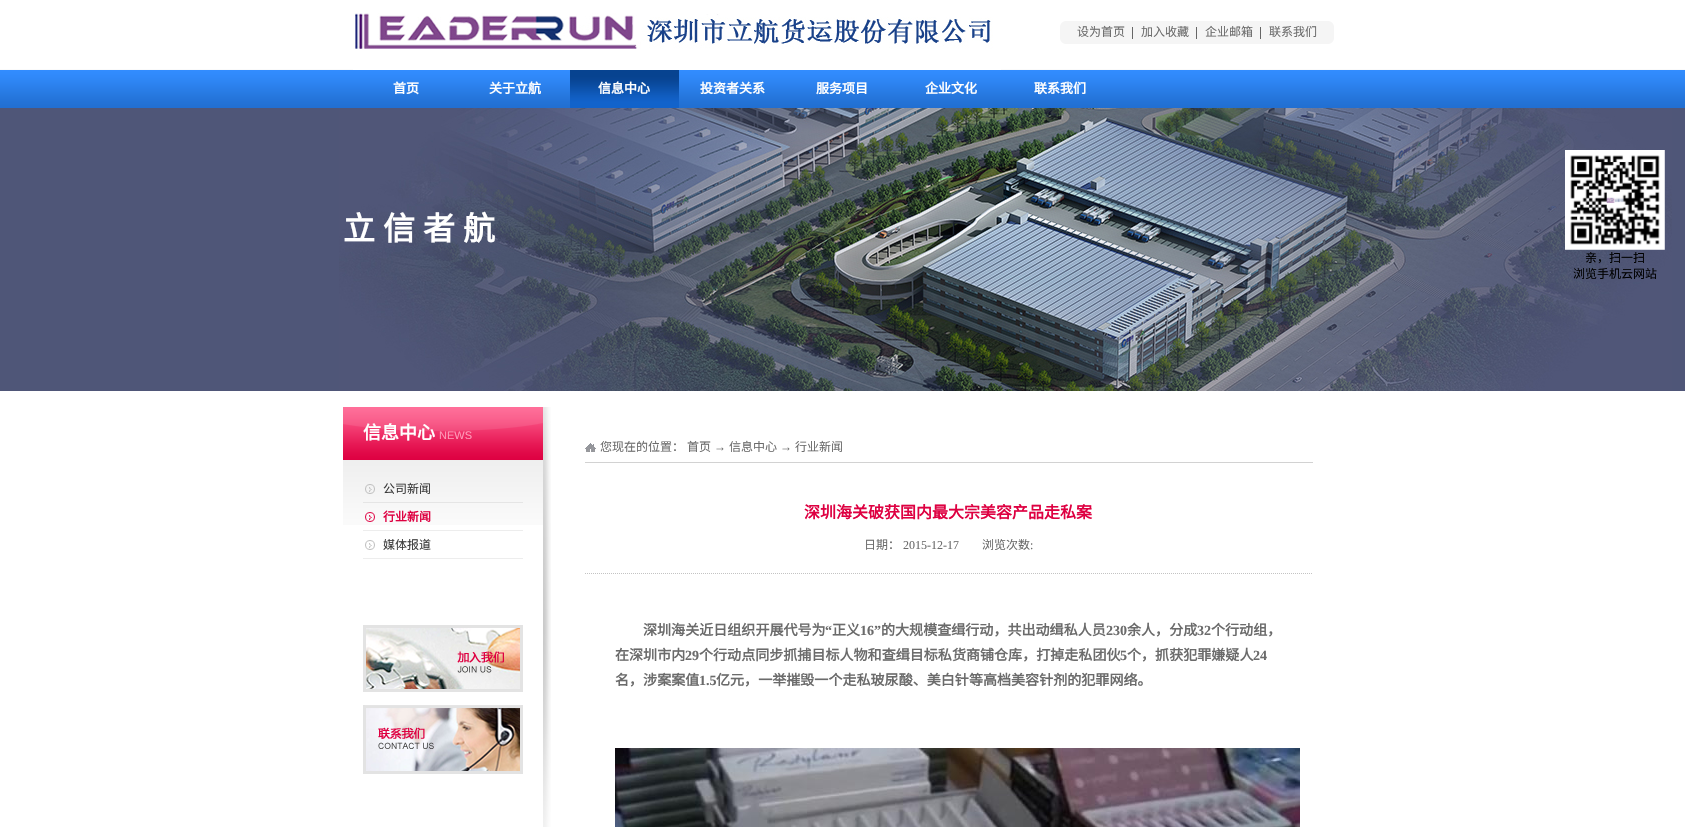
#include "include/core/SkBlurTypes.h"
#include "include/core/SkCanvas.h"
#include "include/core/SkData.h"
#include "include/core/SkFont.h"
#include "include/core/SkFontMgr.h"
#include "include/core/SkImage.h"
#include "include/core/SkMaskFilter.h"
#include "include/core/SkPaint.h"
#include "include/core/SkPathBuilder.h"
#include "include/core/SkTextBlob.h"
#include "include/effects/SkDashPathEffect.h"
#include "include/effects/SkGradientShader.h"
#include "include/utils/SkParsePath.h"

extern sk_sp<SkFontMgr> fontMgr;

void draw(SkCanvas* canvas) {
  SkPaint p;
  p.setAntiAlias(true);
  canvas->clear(SK_ColorWHITE);
  canvas->drawImageRect(SkImages::DeferredFromEncodedData(SkData::MakeFromFileName("images/1.png")), SkRect::MakeLTRB(0, 69, 1685, 70), SkSamplingOptions());
  canvas->drawImageRect(SkImages::DeferredFromEncodedData(SkData::MakeFromFileName("images/2.png")), SkRect::MakeLTRB(353, 13, 1001, 70), SkSamplingOptions());
  canvas->drawImageRect(SkImages::DeferredFromEncodedData(SkData::MakeFromFileName("images/3.png")), SkRect::MakeLTRB(1060, 21, 1334, 44), SkSamplingOptions());
  p.setColor(SkColorSetRGB(102, 102, 102));
  canvas->drawRect(SkRect::MakeLTRB(1132, 27, 1133, 39), p);
  canvas->drawRect(SkRect::MakeLTRB(1196, 27, 1197, 39), p);
  canvas->drawRect(SkRect::MakeLTRB(1260, 27, 1261, 39), p);
  canvas->drawImageRect(SkImages::DeferredFromEncodedData(SkData::MakeFromFileName("images/4.png")), SkRect::MakeLTRB(0, 70, 1685, 108), SkSamplingOptions());
  canvas->drawImageRect(SkImages::DeferredFromEncodedData(SkData::MakeFromFileName("images/5.png")), SkRect::MakeLTRB(352, 70, 353, 105), SkSamplingOptions());
  canvas->drawImageRect(SkImages::DeferredFromEncodedData(SkData::MakeFromFileName("images/6.png")), SkRect::MakeLTRB(570, 70, 679, 108), SkSamplingOptions());
  p.setColor(SkColorSetRGB(79, 86, 120));
  canvas->drawRect(SkRect::MakeLTRB(0, 108, 1685, 391), p);
  canvas->drawImageRect(SkImages::DeferredFromEncodedData(SkData::MakeFromFileName("images/7.png")), SkRect::MakeLTRB(339, 108, 1672, 391), SkSamplingOptions());
  canvas->drawImageRect(SkImages::DeferredFromEncodedData(SkData::MakeFromFileName("images/8.png")), SkRect::MakeLTRB(1565, 150, 1665, 250), SkSamplingOptions());
  canvas->drawImageRect(SkImages::DeferredFromEncodedData(SkData::MakeFromFileName("images/9.png")), SkRect::MakeLTRB(343, 460, 543, 525), SkSamplingOptions());
  canvas->drawImageRect(SkImages::DeferredFromEncodedData(SkData::MakeFromFileName("images/10.png")), SkRect::MakeLTRB(343, 407, 543, 460), SkSamplingOptions());
  canvas->drawImageRect(SkImages::DeferredFromEncodedData(SkData::MakeFromFileName("images/11.png")), SkRect::MakeLTRB(543, 407, 551, 827), SkSamplingOptions());
  canvas->drawImageRect(SkImages::DeferredFromEncodedData(SkData::MakeFromFileName("images/12.png")), SkRect::MakeLTRB(363, 484, 523, 503), SkSamplingOptions());
  canvas->drawImageRect(SkImages::DeferredFromEncodedData(SkData::MakeFromFileName("images/13.png")), SkRect::MakeLTRB(363, 512, 523, 531), SkSamplingOptions());
  canvas->drawImageRect(SkImages::DeferredFromEncodedData(SkData::MakeFromFileName("images/14.png")), SkRect::MakeLTRB(363, 540, 523, 559), SkSamplingOptions());
  canvas->drawImageRect(SkImages::DeferredFromEncodedData(SkData::MakeFromFileName("images/15.png")), SkRect::MakeLTRB(363, 625, 523, 692), SkSamplingOptions());
  canvas->drawImageRect(SkImages::DeferredFromEncodedData(SkData::MakeFromFileName("images/16.png")), SkRect::MakeLTRB(363, 705, 523, 774), SkSamplingOptions());
  p.setColor(SkColorSetRGB(210, 210, 210));
  canvas->drawRect(SkRect::MakeLTRB(585, 462, 1313, 463), p);
  canvas->drawImageRect(SkImages::DeferredFromEncodedData(SkData::MakeFromFileName("images/17.png")), SkRect::MakeLTRB(585, 443, 596, 452), SkSamplingOptions());
  p.setStyle(SkPaint::kStroke_Style);
  p.setStrokeWidth(1);
  p.setColor(SkColorSetRGB(195, 195, 195));
  p.setPathEffect(SkDashPathEffect::Make({{1, 1}}, 0));
  canvas->drawPath(SkPathBuilder().moveTo(585, 573.5f).lineTo(1313, 573.5f).detach(), p);
  p.setPathEffect(nullptr);
  canvas->drawImageRect(SkImages::DeferredFromEncodedData(SkData::MakeFromFileName("images/18.png")), SkRect::MakeLTRB(615, 748, 1300, 827), SkSamplingOptions());
  SkFont font1(fontMgr->matchFamilyStyle("Noto Sans CJK SC", SkFontStyle::Normal()), 12);
  font1.setSubpixel(true);
  p.setStyle(SkPaint::kFill_Style);
  p.setColor(SkColorSetRGB(107, 107, 107));
  canvas->drawString("设为首页", 1077, 36, font1, p);
  canvas->drawString("加入收藏", 1141, 36, font1, p);
  canvas->drawString("企业邮箱", 1205, 36, font1, p);
  canvas->drawString("联系我们", 1269, 36, font1, p);
  SkFont font2(fontMgr->matchFamilyStyle("Noto Sans CJK SC", SkFontStyle::Bold()), 13);
  font2.setSubpixel(true);
  p.setColor(SK_ColorWHITE);
  canvas->drawString("首页", 393, 93, font2, p);
  canvas->drawString("关于立航", 489, 93, font2, p);
  canvas->drawString("信息中心", 598, 93, font2, p);
  canvas->drawString("投资者关系", 700, 93, font2, p);
  canvas->drawString("服务项目", 816, 93, font2, p);
  canvas->drawString("企业文化", 925, 93, font2, p);
  canvas->drawString("联系我们", 1034, 93, font2, p);
  SkFont font3(fontMgr->matchFamilyStyle("Noto Sans CJK SC", SkFontStyle::Bold()), 32);
  font3.setSubpixel(true);
  canvas->drawString("立", 343, 240, font3, p);
  canvas->drawString("信", 383, 240, font3, p);
  canvas->drawString("者", 423, 240, font3, p);
  canvas->drawString("航", 463, 240, font3, p);
  p.setColor(SK_ColorBLACK);
  canvas->drawString("亲，扫一扫", 1585, 262, font1, p);
  canvas->drawString("浏览手机云网站", 1573, 278, font1, p);
  SkFont font4(fontMgr->matchFamilyStyle("Noto Sans CJK SC", SkFontStyle::Bold()), 18);
  font4.setSubpixel(true);
  p.setColor(SK_ColorWHITE);
  canvas->drawString("信息中心", 363, 439, font4, p);
  SkFont font5(fontMgr->matchFamilyStyle("Liberation Sans", SkFontStyle::Normal()), 11);
  font5.setSubpixel(true);
  p.setColor(SkColorSetRGB(255, 154, 184));
  canvas->drawString("NEWS", 439, 439, font5, p);
  p.setColor(SkColorSetRGB(59, 59, 59));
  canvas->drawString("公司新闻", 383, 493, font1, p);
  SkFont font6(fontMgr->matchFamilyStyle("Noto Sans CJK SC", SkFontStyle::Bold()), 12);
  font6.setSubpixel(true);
  p.setColor(SkColorSetRGB(222, 0, 65));
  canvas->drawString("行业新闻", 383, 521, font6, p);
  p.setColor(SkColorSetRGB(59, 59, 59));
  canvas->drawString("媒体报道", 383, 549, font1, p);
  p.setColor(SkColorSetRGB(107, 107, 107));
  canvas->drawString("您现在的位置：", 600, 451, font1, p);
  canvas->drawString("首页", 687, 451, font1, p);
  SkFont font7(fontMgr->matchFamilyStyle("Liberation Serif", SkFontStyle::Normal()), 12);
  font7.setSubpixel(true);
  canvas->drawString("→", 714, 451, font7, p);
  canvas->drawString("信息中心", 729, 451, font1, p);
  canvas->drawString("→", 780, 451, font7, p);
  canvas->drawString("行业新闻", 795, 451, font1, p);
  SkFont font8(fontMgr->matchFamilyStyle("Noto Sans CJK SC", SkFontStyle::Bold()), 16);
  font8.setSubpixel(true);
  p.setColor(SkColorSetRGB(222, 0, 65));
  canvas->drawString("深圳海关破获国内最大宗美容产品走私案", 804, 518, font8, p);
  p.setColor(SkColorSetRGB(107, 107, 107));
  canvas->drawString("日期：", 864, 549, font1, p);
  canvas->drawString("2015-12-17", 903, 549, font7, p);
  canvas->drawString("浏览次数", 982, 549, font1, p);
  canvas->drawString(":", 1030, 549, font7, p);
  SkFont font9(fontMgr->matchFamilyStyle("Noto Sans CJK SC", SkFontStyle::Bold()), 14.05f);
  font9.setSubpixel(true);
  canvas->drawString("深圳海关近日组织开展代号为", 643, 635, font9, p);
  SkFont font10(fontMgr->matchFamilyStyle("Liberation Serif", SkFontStyle::Bold()), 14.05f);
  font10.setSubpixel(true);
  canvas->drawString("“", 825, 635, font10, p);
  canvas->drawString("正义", 832, 635, font9, p);
  canvas->drawString("16”", 860, 635, font10, p);
  canvas->drawString("的大规模查缉行动，共出动缉私人员", 881, 635, font9, p);
  canvas->drawString("230", 1106, 635, font10, p);
  canvas->drawString("余人，分成", 1127, 635, font9, p);
  canvas->drawString("32", 1197, 635, font10, p);
  canvas->drawString("个行动组，", 1211, 635, font9, p);
  canvas->drawString("在深圳市内", 615, 660, font9, p);
  canvas->drawString("29", 685, 660, font10, p);
  canvas->drawString("个行动点同步抓捕目标人物和查缉目标私货商铺仓库，打掉走私团伙", 699, 660, font9, p);
  canvas->drawString("5", 1120, 660, font10, p);
  canvas->drawString("个，抓获犯罪嫌疑人", 1127, 660, font9, p);
  canvas->drawString("24", 1253, 660, font10, p);
  canvas->drawString("名，涉案案值", 615, 685, font9, p);
  canvas->drawString("1.5", 699, 685, font10, p);
  canvas->drawString("亿元，一举摧毁一个走私玻尿酸、美白针等高档美容针剂的犯罪网络。", 716, 685, font9, p);
}
